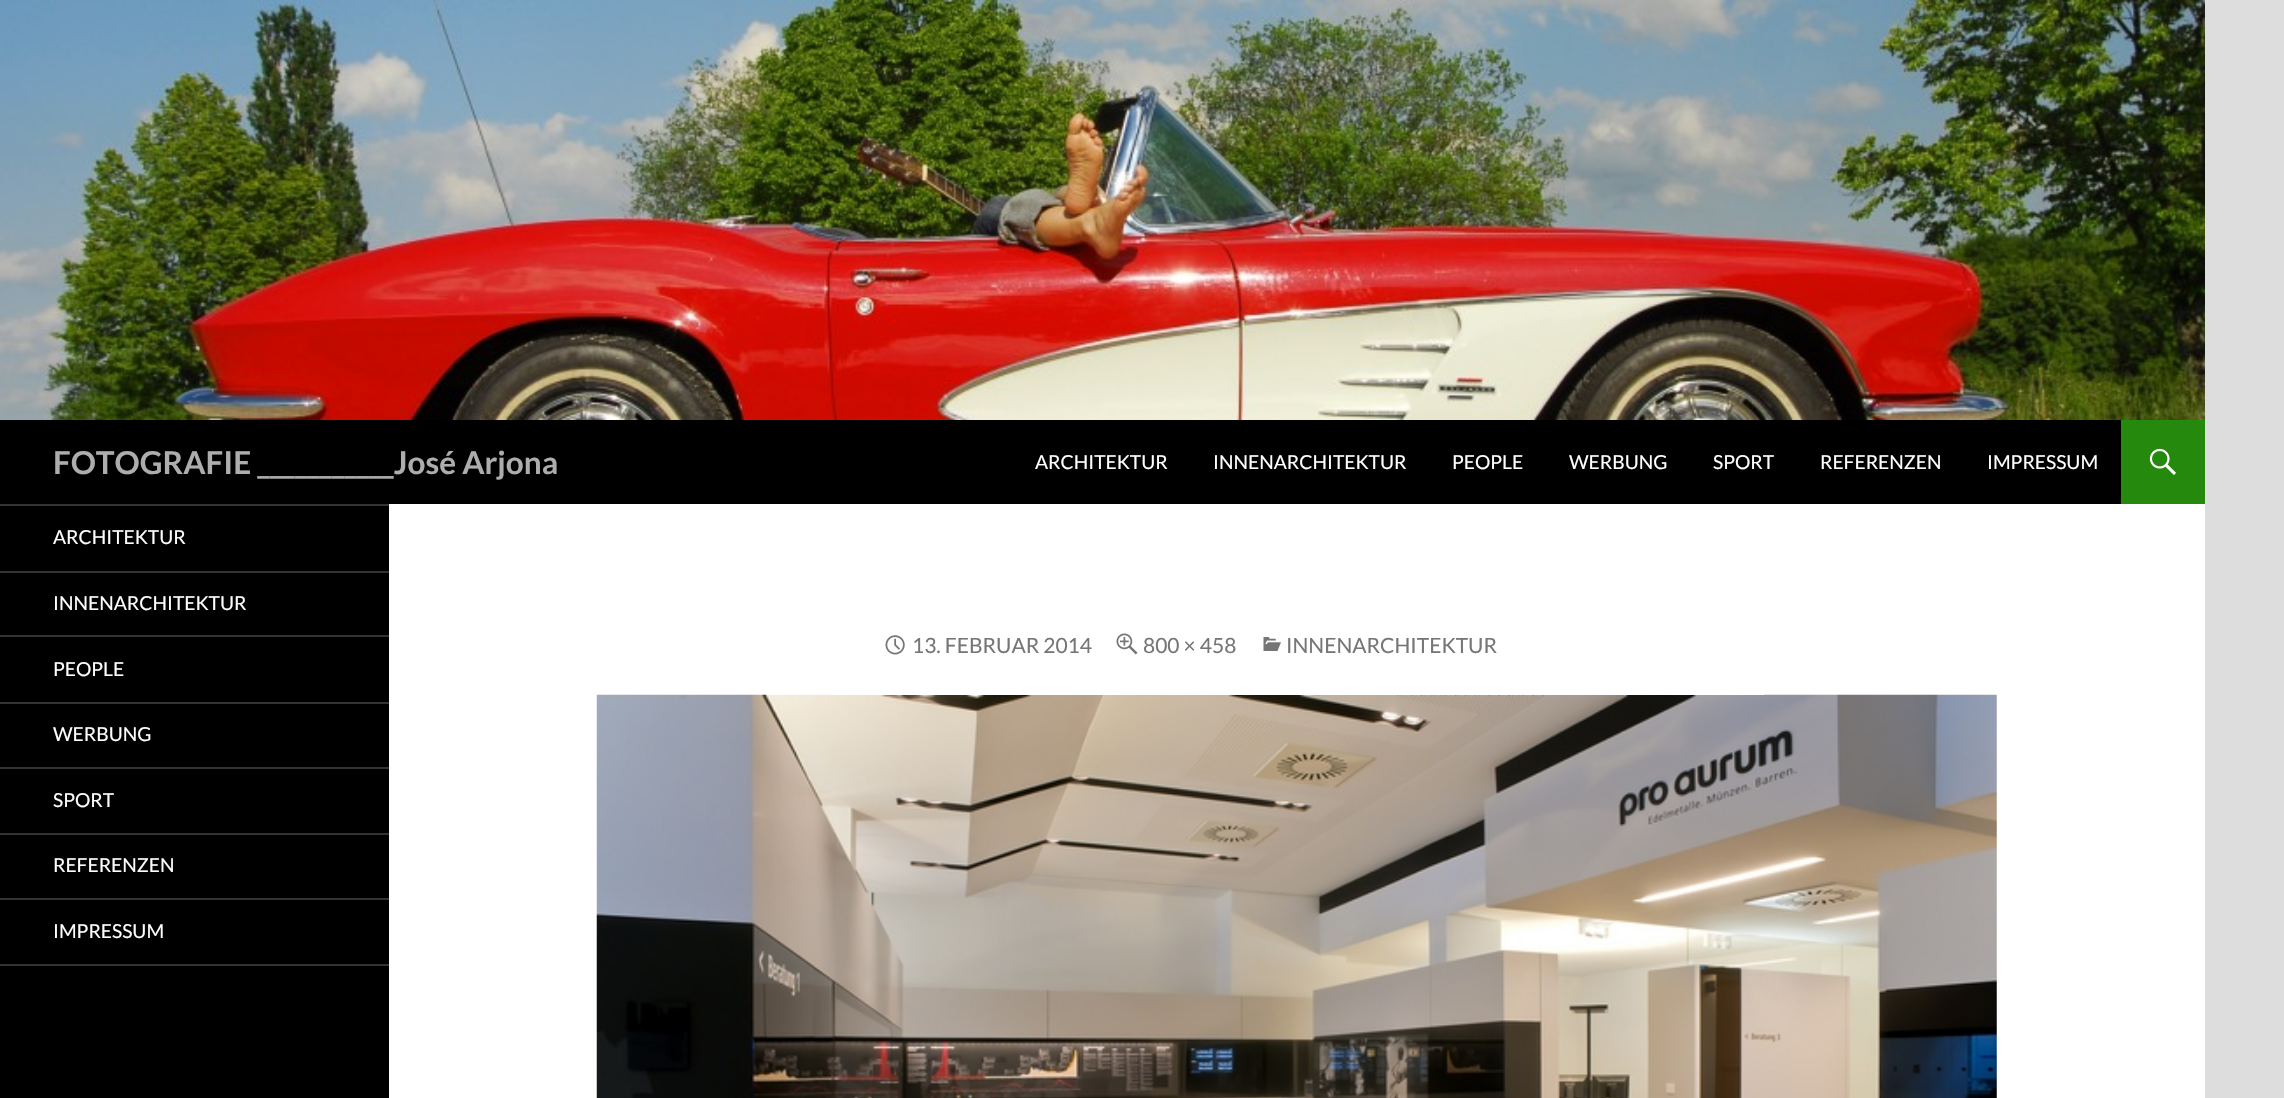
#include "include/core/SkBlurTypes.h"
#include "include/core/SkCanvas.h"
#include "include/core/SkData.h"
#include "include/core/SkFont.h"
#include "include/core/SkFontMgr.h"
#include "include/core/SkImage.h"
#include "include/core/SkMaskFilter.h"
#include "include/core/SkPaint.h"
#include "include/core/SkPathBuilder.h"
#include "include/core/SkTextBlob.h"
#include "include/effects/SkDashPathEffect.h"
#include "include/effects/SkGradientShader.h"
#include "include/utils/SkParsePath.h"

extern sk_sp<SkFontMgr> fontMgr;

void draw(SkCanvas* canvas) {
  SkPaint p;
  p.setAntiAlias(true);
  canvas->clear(SkColorSetRGB(221, 221, 221));
  p.setColor(SK_ColorWHITE);
  canvas->drawRect(SkRect::MakeLTRB(389, 504, 2205, 1098), p);
  canvas->drawImageRect(SkImages::DeferredFromEncodedData(SkData::MakeFromFileName("images/1.png")), SkRect::MakeLTRB(0, 0, 2205, 420), SkSamplingOptions());
  p.setColor(SK_ColorBLACK);
  canvas->drawRect(SkRect::MakeLTRB(0, 420, 2121, 504), p);
  p.setColor(SkColorSetRGB(36, 137, 13));
  canvas->drawRect(SkRect::MakeLTRB(2121, 420, 2205, 504), p);
  canvas->drawImageRect(SkImages::DeferredFromEncodedData(SkData::MakeFromFileName("images/2.png")), SkRect::MakeLTRB(2149, 448, 2176, 475), SkSamplingOptions());
  p.setColor(SK_ColorBLACK);
  canvas->drawRect(SkRect::MakeLTRB(0, 506, 389, 1098), p);
  p.setColor(SkColorSetRGB(51, 51, 51));
  canvas->drawRect(SkRect::MakeLTRB(0, 964, 389, 966), p);
  canvas->drawRect(SkRect::MakeLTRB(0, 504, 389, 506), p);
  canvas->drawRect(SkRect::MakeLTRB(0, 571, 389, 573), p);
  canvas->drawRect(SkRect::MakeLTRB(0, 635, 389, 637), p);
  canvas->drawRect(SkRect::MakeLTRB(0, 702, 389, 704), p);
  canvas->drawRect(SkRect::MakeLTRB(0, 767, 389, 769), p);
  canvas->drawRect(SkRect::MakeLTRB(0, 833, 389, 835), p);
  canvas->drawRect(SkRect::MakeLTRB(0, 898, 389, 900), p);
  canvas->drawImageRect(SkImages::DeferredFromEncodedData(SkData::MakeFromFileName("images/6.png")), SkRect::MakeLTRB(596, 694, 1997, 1098), SkSamplingOptions());
  p.setColor(SK_ColorWHITE);
  canvas->drawRect(SkRect::MakeLTRB(830, 694, 1764, 695), p);
  canvas->drawImageRect(SkImages::DeferredFromEncodedData(SkData::MakeFromFileName("images/3.png")), SkRect::MakeLTRB(885, 635, 905, 655), SkSamplingOptions());
  canvas->drawImageRect(SkImages::DeferredFromEncodedData(SkData::MakeFromFileName("images/4.png")), SkRect::MakeLTRB(1116, 633, 1138, 655), SkSamplingOptions());
  canvas->drawImageRect(SkImages::DeferredFromEncodedData(SkData::MakeFromFileName("images/5.png")), SkRect::MakeLTRB(1263, 637, 1281, 651), SkSamplingOptions());
  SkFont font1(fontMgr->matchFamilyStyle("Lato", SkFontStyle::Bold()), 31.5f);
  font1.setSubpixel(true);
  p.setColor(SkColorSetRGB(173, 173, 173));
  canvas->drawString("FOTOGRAFIE ___________José Arjona", 53, 474, font1, p);
  SkFont font2(fontMgr->matchFamilyStyle("Lato", SkFontStyle::Normal()), 19.25f);
  font2.setSubpixel(true);
  p.setColor(SK_ColorWHITE);
  canvas->drawString("ARCHITEKTUR", 1035, 469, font2, p);
  canvas->drawString("INNENARCHITEKTUR", 1213, 469, font2, p);
  canvas->drawString("PEOPLE", 1452, 469, font2, p);
  canvas->drawString("WERBUNG", 1569, 469, font2, p);
  canvas->drawString("SPORT", 1713, 469, font2, p);
  canvas->drawString("REFERENZEN", 1820, 469, font2, p);
  canvas->drawString("IMPRESSUM", 1987, 469, font2, p);
  canvas->drawString("ARCHITEKTUR", 53, 544, font2, p);
  canvas->drawString("INNENARCHITEKTUR", 53, 610, font2, p);
  canvas->drawString("PEOPLE", 53, 676, font2, p);
  canvas->drawString("WERBUNG", 53, 741, font2, p);
  canvas->drawString("SPORT", 53, 807, font2, p);
  canvas->drawString("REFERENZEN", 53, 872, font2, p);
  canvas->drawString("IMPRESSUM", 53, 938, font2, p);
  SkFont font3(fontMgr->matchFamilyStyle("Lato", SkFontStyle::Normal()), 21);
  font3.setSubpixel(true);
  p.setColor(SkColorSetRGB(118, 118, 118));
  canvas->drawString("13. FEBRUAR 2014", 912, 653, font3, p);
  canvas->drawString("800 × 458", 1143, 653, font3, p);
  canvas->drawString("INNENARCHITEKTUR", 1286, 653, font3, p);
}
